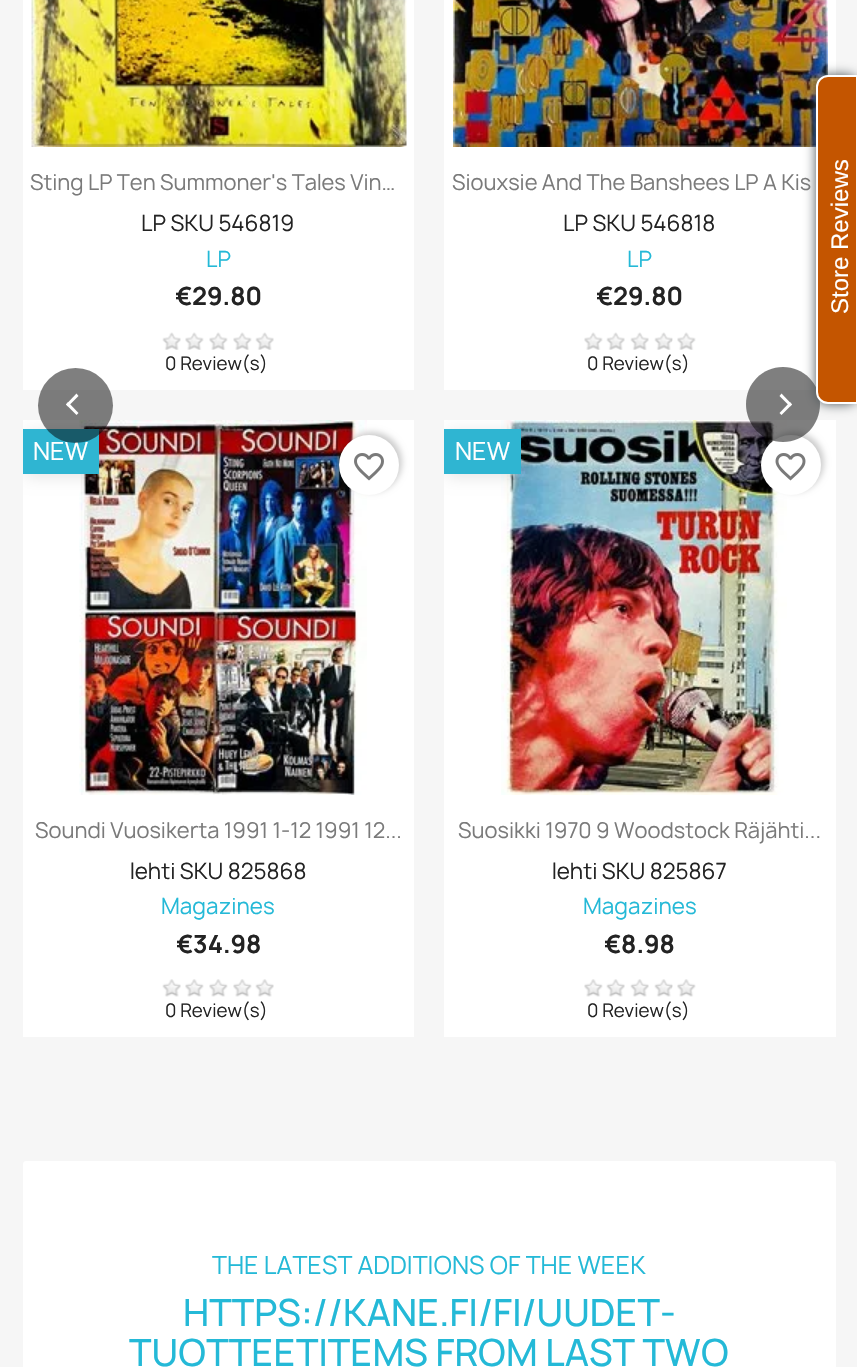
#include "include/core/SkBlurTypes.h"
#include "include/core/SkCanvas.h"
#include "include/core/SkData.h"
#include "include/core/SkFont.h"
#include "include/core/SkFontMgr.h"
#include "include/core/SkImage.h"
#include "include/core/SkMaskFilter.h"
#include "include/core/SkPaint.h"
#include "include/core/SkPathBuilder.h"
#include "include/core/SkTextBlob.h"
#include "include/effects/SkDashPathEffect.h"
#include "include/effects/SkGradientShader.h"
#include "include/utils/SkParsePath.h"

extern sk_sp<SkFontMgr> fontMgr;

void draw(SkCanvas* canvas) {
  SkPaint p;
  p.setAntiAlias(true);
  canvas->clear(SkColorSetRGB(246, 246, 246));
  p.setColor(SK_ColorWHITE);
  canvas->drawRect(SkRect::MakeLTRB(23, 0, 414, 390), p);
  canvas->drawImageRect(SkImages::DeferredFromEncodedData(SkData::MakeFromFileName("images/1.png")), SkRect::MakeLTRB(31, 0, 407, 147), SkSamplingOptions());
  canvas->drawImageRect(SkImages::DeferredFromEncodedData(SkData::MakeFromFileName("images/2.png")), SkRect::MakeLTRB(162, 332, 181, 350), SkSamplingOptions());
  canvas->drawImageRect(SkImages::DeferredFromEncodedData(SkData::MakeFromFileName("images/3.png")), SkRect::MakeLTRB(185, 332, 204, 350), SkSamplingOptions());
  canvas->drawImageRect(SkImages::DeferredFromEncodedData(SkData::MakeFromFileName("images/3.png")), SkRect::MakeLTRB(209, 332, 228, 350), SkSamplingOptions());
  canvas->drawImageRect(SkImages::DeferredFromEncodedData(SkData::MakeFromFileName("images/3.png")), SkRect::MakeLTRB(233, 332, 252, 350), SkSamplingOptions());
  canvas->drawImageRect(SkImages::DeferredFromEncodedData(SkData::MakeFromFileName("images/2.png")), SkRect::MakeLTRB(255, 332, 274, 350), SkSamplingOptions());
  canvas->drawRect(SkRect::MakeLTRB(23, 420, 414, 1037), p);
  canvas->drawImageRect(SkImages::DeferredFromEncodedData(SkData::MakeFromFileName("images/4.png")), SkRect::MakeLTRB(79, 420, 367, 795), SkSamplingOptions());
  canvas->save();
  canvas->clipRect(SkRect::MakeLTRB(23, 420, 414, 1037));
  p.setColor(SkColorSetARGB(26, 0, 0, 0));
  p.setMaskFilter(SkMaskFilter::MakeBlur(kNormal_SkBlurStyle, 8));
  canvas->drawRect(SkRect::MakeLTRB(26, 432, 102, 477), p);
  p.setMaskFilter(nullptr);
  canvas->restore();
  p.setColor(SkColorSetRGB(47, 181, 210));
  canvas->drawRect(SkRect::MakeLTRB(23, 429, 99, 474), p);
  p.setColor(SkColorSetARGB(51, 0, 0, 0));
  p.setMaskFilter(SkMaskFilter::MakeBlur(kNormal_SkBlurStyle, 3));
  canvas->drawRoundRect(SkRect::MakeLTRB(342, 432, 402, 492), 30, 30, p);
  p.setMaskFilter(nullptr);
  p.setColor(SK_ColorWHITE);
  canvas->drawCircle(369, 465, 30, p);
  canvas->drawImageRect(SkImages::DeferredFromEncodedData(SkData::MakeFromFileName("images/5.png")), SkRect::MakeLTRB(354, 453, 384, 481), SkSamplingOptions());
  canvas->drawImageRect(SkImages::DeferredFromEncodedData(SkData::MakeFromFileName("images/6.png")), SkRect::MakeLTRB(162, 979, 181, 997), SkSamplingOptions());
  canvas->drawImageRect(SkImages::DeferredFromEncodedData(SkData::MakeFromFileName("images/7.png")), SkRect::MakeLTRB(185, 979, 204, 997), SkSamplingOptions());
  canvas->drawImageRect(SkImages::DeferredFromEncodedData(SkData::MakeFromFileName("images/7.png")), SkRect::MakeLTRB(209, 979, 228, 997), SkSamplingOptions());
  canvas->drawImageRect(SkImages::DeferredFromEncodedData(SkData::MakeFromFileName("images/7.png")), SkRect::MakeLTRB(233, 979, 252, 997), SkSamplingOptions());
  canvas->drawImageRect(SkImages::DeferredFromEncodedData(SkData::MakeFromFileName("images/6.png")), SkRect::MakeLTRB(255, 979, 274, 997), SkSamplingOptions());
  canvas->drawRect(SkRect::MakeLTRB(444, 0, 836, 390), p);
  canvas->drawImageRect(SkImages::DeferredFromEncodedData(SkData::MakeFromFileName("images/8.png")), SkRect::MakeLTRB(453, 0, 828, 147), SkSamplingOptions());
  canvas->drawImageRect(SkImages::DeferredFromEncodedData(SkData::MakeFromFileName("images/3.png")), SkRect::MakeLTRB(584, 332, 603, 350), SkSamplingOptions());
  canvas->drawImageRect(SkImages::DeferredFromEncodedData(SkData::MakeFromFileName("images/2.png")), SkRect::MakeLTRB(606, 332, 625, 350), SkSamplingOptions());
  canvas->drawImageRect(SkImages::DeferredFromEncodedData(SkData::MakeFromFileName("images/2.png")), SkRect::MakeLTRB(630, 332, 649, 350), SkSamplingOptions());
  canvas->drawImageRect(SkImages::DeferredFromEncodedData(SkData::MakeFromFileName("images/9.png")), SkRect::MakeLTRB(654, 332, 673, 350), SkSamplingOptions());
  canvas->drawImageRect(SkImages::DeferredFromEncodedData(SkData::MakeFromFileName("images/3.png")), SkRect::MakeLTRB(677, 332, 696, 350), SkSamplingOptions());
  canvas->drawRect(SkRect::MakeLTRB(444, 420, 836, 1037), p);
  canvas->drawImageRect(SkImages::DeferredFromEncodedData(SkData::MakeFromFileName("images/10.png")), SkRect::MakeLTRB(501, 420, 787, 795), SkSamplingOptions());
  canvas->save();
  canvas->clipRect(SkRect::MakeLTRB(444, 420, 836, 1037));
  p.setColor(SkColorSetARGB(26, 0, 0, 0));
  p.setMaskFilter(SkMaskFilter::MakeBlur(kNormal_SkBlurStyle, 8));
  canvas->drawRect(SkRect::MakeLTRB(447, 432, 524, 477), p);
  p.setMaskFilter(nullptr);
  canvas->restore();
  p.setColor(SkColorSetRGB(47, 181, 210));
  canvas->drawRect(SkRect::MakeLTRB(444, 429, 521, 474), p);
  p.setColor(SkColorSetARGB(51, 0, 0, 0));
  p.setMaskFilter(SkMaskFilter::MakeBlur(kNormal_SkBlurStyle, 3));
  canvas->drawRoundRect(SkRect::MakeLTRB(764, 432, 824, 492), 30, 30, p);
  p.setMaskFilter(nullptr);
  p.setColor(SK_ColorWHITE);
  canvas->drawCircle(791, 465, 30, p);
  canvas->drawImageRect(SkImages::DeferredFromEncodedData(SkData::MakeFromFileName("images/11.png")), SkRect::MakeLTRB(775, 453, 806, 481), SkSamplingOptions());
  canvas->drawImageRect(SkImages::DeferredFromEncodedData(SkData::MakeFromFileName("images/7.png")), SkRect::MakeLTRB(584, 979, 603, 997), SkSamplingOptions());
  canvas->drawImageRect(SkImages::DeferredFromEncodedData(SkData::MakeFromFileName("images/6.png")), SkRect::MakeLTRB(606, 979, 625, 997), SkSamplingOptions());
  canvas->drawImageRect(SkImages::DeferredFromEncodedData(SkData::MakeFromFileName("images/6.png")), SkRect::MakeLTRB(630, 979, 649, 997), SkSamplingOptions());
  canvas->drawImageRect(SkImages::DeferredFromEncodedData(SkData::MakeFromFileName("images/12.png")), SkRect::MakeLTRB(654, 979, 673, 997), SkSamplingOptions());
  canvas->drawImageRect(SkImages::DeferredFromEncodedData(SkData::MakeFromFileName("images/7.png")), SkRect::MakeLTRB(677, 979, 696, 997), SkSamplingOptions());
  p.setColor(SkColorSetARGB(128, 0, 0, 0));
  canvas->drawPath(SkPathBuilder().moveTo(783, 442).cubicTo(762, 442, 746, 425, 746, 404).cubicTo(746, 384, 762, 367, 783, 367).cubicTo(804, 367, 820, 384, 820, 404).cubicTo(820, 425, 804, 442, 783, 442).close().detach(), p);
  p.setColor(SK_ColorWHITE);
  canvas->drawPath(SkPathBuilder().moveTo(790, 406.5f).lineTo(779.5f, 396).lineTo(781.5f, 393.5f).lineTo(792, 404.5f).close().detach(), p);
  canvas->drawPath(SkPathBuilder().moveTo(781.5f, 415).lineTo(779.5f, 413).lineTo(790, 402).lineTo(792, 404.5f).close().detach(), p);
  canvas->drawRoundRect(SkRect::MakeLTRB(23, 1161, 836, 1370), 3, 3, p);
  p.setColor(SkColorSetRGB(76, 85, 89));
  p.setMaskFilter(SkMaskFilter::MakeBlur(kNormal_SkBlurStyle, 6));
  canvas->drawRoundRect(SkRect::MakeLTRB(816, 75, 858, 404), 12, 12, p);
  p.setMaskFilter(nullptr);
  p.setColor(SkColorSetRGB(196, 85, 0));
  canvas->drawPath(SkPathBuilder().moveTo(828, 76).lineTo(857, 76).lineTo(857, 403).lineTo(828, 403).cubicTo(822, 403, 817, 398, 817, 392).lineTo(817, 87).cubicTo(817, 81, 822, 76, 828, 76).close().detach(), p);
  p.setStyle(SkPaint::kStroke_Style);
  p.setStrokeWidth(2);
  p.setColor(SK_ColorWHITE);
  canvas->drawPath(SkPathBuilder().moveTo(828, 76).lineTo(857, 76).lineTo(857, 403).lineTo(828, 403).cubicTo(822, 403, 817, 398, 817, 392).lineTo(817, 87).cubicTo(817, 81, 822, 76, 828, 76).close().detach(), p);
  SkFont font1(fontMgr->matchFamilyStyle("Manrope", SkFontStyle::Normal()), 21);
  font1.setSubpixel(true);
  p.setStyle(SkPaint::kFill_Style);
  p.setColor(SkColorSetRGB(122, 122, 122));
  canvas->drawString("Sting LP Ten Summoner's Tales Vin…", 30, 190, font1, p);
  SkFont font2(fontMgr->matchFamilyStyle("Manrope", SkFontStyle::Normal()), 21.5f);
  font2.setSubpixel(true);
  p.setColor(SkColorSetRGB(35, 35, 35));
  canvas->drawString("LP SKU 546819", 141, 231, font2, p);
  p.setColor(SkColorSetRGB(36, 185, 215));
  canvas->drawString("LP", 206, 267, font2, p);
  SkFont font3(fontMgr->matchFamilyStyle("Manrope", SkFontStyle::Bold()), 24);
  font3.setSubpixel(true);
  p.setColor(SkColorSetRGB(35, 35, 35));
  canvas->drawString("€29.80", 175, 305, font3, p);
  SkFont font4(fontMgr->matchFamilyStyle("Manrope", SkFontStyle::Normal()), 18);
  font4.setSubpixel(true);
  canvas->drawString("0 Review(s)", 165, 370, font4, p);
  SkFont font5(fontMgr->matchFamilyStyle("Manrope", SkFontStyle::Normal()), 24);
  font5.setSubpixel(true);
  p.setColor(SK_ColorWHITE);
  canvas->drawString("NEW", 33, 460, font5, p);
  p.setColor(SkColorSetRGB(122, 122, 122));
  canvas->drawString("Soundi Vuosikerta 1991 1-12 1991 12...", 35, 838, font1, p);
  p.setColor(SkColorSetRGB(35, 35, 35));
  canvas->drawString("lehti SKU 825868", 130, 879, font2, p);
  p.setColor(SkColorSetRGB(36, 185, 215));
  canvas->drawString("Magazines", 161, 914, font2, p);
  p.setColor(SkColorSetRGB(35, 35, 35));
  canvas->drawString("€34.98", 176, 953, font3, p);
  canvas->drawString("0 Review(s)", 165, 1017, font4, p);
  p.setColor(SkColorSetRGB(122, 122, 122));
  canvas->drawString("Siouxsie And The Banshees LP A Kis", 452, 190, font1, p);
  p.setColor(SkColorSetRGB(35, 35, 35));
  canvas->drawString("LP SKU 546818", 563, 231, font2, p);
  p.setColor(SkColorSetRGB(36, 185, 215));
  canvas->drawString("LP", 627, 267, font2, p);
  p.setColor(SkColorSetRGB(35, 35, 35));
  canvas->drawString("€29.80", 596, 305, font3, p);
  canvas->drawString("0 Review(s)", 587, 370, font4, p);
  p.setColor(SK_ColorWHITE);
  canvas->drawString("NEW", 455, 460, font5, p);
  p.setColor(SkColorSetRGB(122, 122, 122));
  canvas->drawString("Suosikki 1970 9 Woodstock Räjähti...", 458, 838, font1, p);
  p.setColor(SkColorSetRGB(35, 35, 35));
  canvas->drawString("lehti SKU 825867", 552, 879, font2, p);
  p.setColor(SkColorSetRGB(36, 185, 215));
  canvas->drawString("Magazines", 583, 914, font2, p);
  p.setColor(SkColorSetRGB(35, 35, 35));
  canvas->drawString("€8.98", 604, 953, font3, p);
  canvas->drawString("0 Review(s)", 587, 1017, font4, p);
  p.setColor(SkColorSetARGB(128, 0, 0, 0));
  canvas->drawCircle(75.5f, 405.5f, 37.5f, p);
  p.setColor(SK_ColorWHITE);
  canvas->drawPath(SkPathBuilder().moveTo(68, 402).lineTo(78.5f, 413).lineTo(76.5f, 415).lineTo(66, 404.5f).close().detach(), p);
  canvas->drawPath(SkPathBuilder().moveTo(76.5f, 393.5f).lineTo(78.5f, 396).lineTo(68, 406.5f).lineTo(66, 404.5f).close().detach(), p);
  p.setColor(SkColorSetRGB(36, 185, 215));
  canvas->drawString("THE LATEST ADDITIONS OF THE WEEK", 212, 1274, font5, p);
  SkFont font6(fontMgr->matchFamilyStyle("Manrope", SkFontStyle(500, SkFontStyle::kNormal_Width, SkFontStyle::kUpright_Slant)), 36);
  font6.setSubpixel(true);
  canvas->drawString("HTTPS://KANE.FI/FI/UUDET-", 183, 1326, font6, p);
  canvas->drawString("TUOTTEETITEMS FROM LAST TWO", 129, 1366, font6, p);
  SkFont font7(fontMgr->matchFamilyStyle("Liberation Sans", SkFontStyle::Normal()), 24);
  font7.setSubpixel(true);
  p.setColor(SK_ColorWHITE);
  canvas->save();
  canvas->rotate(-90, 848, 314);
  canvas->drawString("Store Reviews", 848, 314, font7, p);
  canvas->restore();
}
